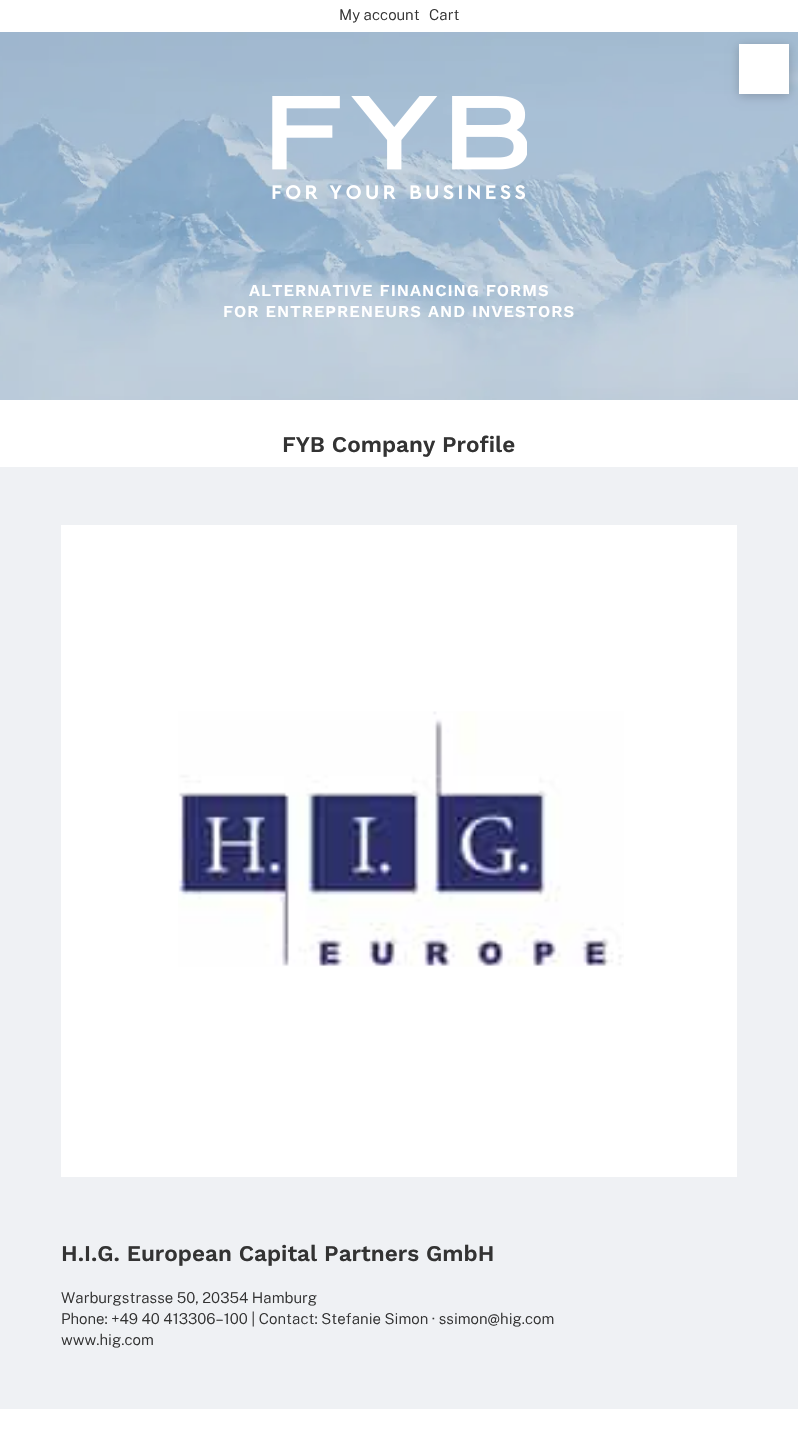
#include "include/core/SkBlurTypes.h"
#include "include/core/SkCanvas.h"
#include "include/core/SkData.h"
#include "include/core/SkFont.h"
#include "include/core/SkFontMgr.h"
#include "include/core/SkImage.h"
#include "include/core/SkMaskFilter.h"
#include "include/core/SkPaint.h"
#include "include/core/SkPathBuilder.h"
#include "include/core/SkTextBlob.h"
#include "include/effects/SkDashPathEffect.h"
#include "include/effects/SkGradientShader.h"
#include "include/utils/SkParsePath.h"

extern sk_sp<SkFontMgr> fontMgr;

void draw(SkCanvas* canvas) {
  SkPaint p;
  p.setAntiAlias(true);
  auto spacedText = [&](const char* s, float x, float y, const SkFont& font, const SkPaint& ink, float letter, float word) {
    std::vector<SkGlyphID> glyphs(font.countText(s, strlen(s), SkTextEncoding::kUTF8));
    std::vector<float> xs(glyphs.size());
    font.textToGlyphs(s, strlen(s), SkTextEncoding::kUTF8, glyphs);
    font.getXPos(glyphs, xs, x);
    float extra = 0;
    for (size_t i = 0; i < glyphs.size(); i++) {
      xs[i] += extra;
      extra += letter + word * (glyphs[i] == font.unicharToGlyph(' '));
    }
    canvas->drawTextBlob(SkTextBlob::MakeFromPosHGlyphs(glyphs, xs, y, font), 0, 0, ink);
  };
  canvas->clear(SK_ColorWHITE);
  canvas->drawImageRect(SkImages::DeferredFromEncodedData(SkData::MakeFromFileName("images/1.png")), SkRect::MakeLTRB(0, 32, 798, 400), SkSamplingOptions());
  p.setColor(SkColorSetARGB(51, 0, 0, 0));
  p.setMaskFilter(SkMaskFilter::MakeBlur(kNormal_SkBlurStyle, 5));
  canvas->drawRect(SkRect::MakeLTRB(739, 46, 789, 96), p);
  p.setMaskFilter(nullptr);
  p.setColor(SK_ColorWHITE);
  canvas->drawRect(SkRect::MakeLTRB(739, 44, 789, 94), p);
  canvas->drawImageRect(SkImages::DeferredFromEncodedData(SkData::MakeFromFileName("images/2.png")), SkRect::MakeLTRB(272, 96, 527, 200), SkSamplingOptions());
  p.setColor(SkColorSetRGB(239, 241, 244));
  canvas->drawRect(SkRect::MakeLTRB(0, 467, 798, 1409), p);
  p.setColor(SK_ColorWHITE);
  canvas->drawRect(SkRect::MakeLTRB(61, 525, 737, 1177), p);
  canvas->drawImageRect(SkImages::DeferredFromEncodedData(SkData::MakeFromFileName("images/3.png")), SkRect::MakeLTRB(178, 711, 624, 967), SkSamplingOptions());
  SkFont font1(fontMgr->matchFamilyStyle("Public Sans", SkFontStyle(100, SkFontStyle::kNormal_Width, SkFontStyle::kUpright_Slant)), 15);
  font1.setSubpixel(true);
  p.setColor(SkColorSetRGB(51, 51, 51));
  canvas->drawString("My account", 339, 20, font1, p);
  canvas->drawString("Cart", 429, 20, font1, p);
  SkFont font2(fontMgr->matchFamilyStyle("Work Sans", SkFontStyle(600, SkFontStyle::kNormal_Width, SkFontStyle::kUpright_Slant)), 16.5f);
  font2.setSubpixel(true);
  p.setColor(SK_ColorWHITE);
  spacedText("ALTERNATIVE FINANCING FORMS", 249, 296, font2, p, 1, 0);
  spacedText("FOR ENTREPRENEURS AND INVESTORS", 223, 317, font2, p, 1, 0);
  SkFont font3(fontMgr->matchFamilyStyle("Work Sans", SkFontStyle(600, SkFontStyle::kNormal_Width, SkFontStyle::kUpright_Slant)), 22.5f);
  font3.setSubpixel(true);
  p.setColor(SkColorSetRGB(51, 51, 51));
  canvas->drawString("FYB Company Profile", 282, 452, font3, p);
  canvas->drawString("H.I.G. European Capital Partners GmbH", 61, 1261, font3, p);
  canvas->drawString("Warburgstrasse 50, 20354 Hamburg", 61, 1303, font1, p);
  canvas->drawString("Phone: +49 40 413306–100 | Contact: Stefanie Simon · ssimon@hig.com", 61, 1324, font1, p);
  canvas->drawString("www.hig.com", 61, 1345, font1, p);
}
